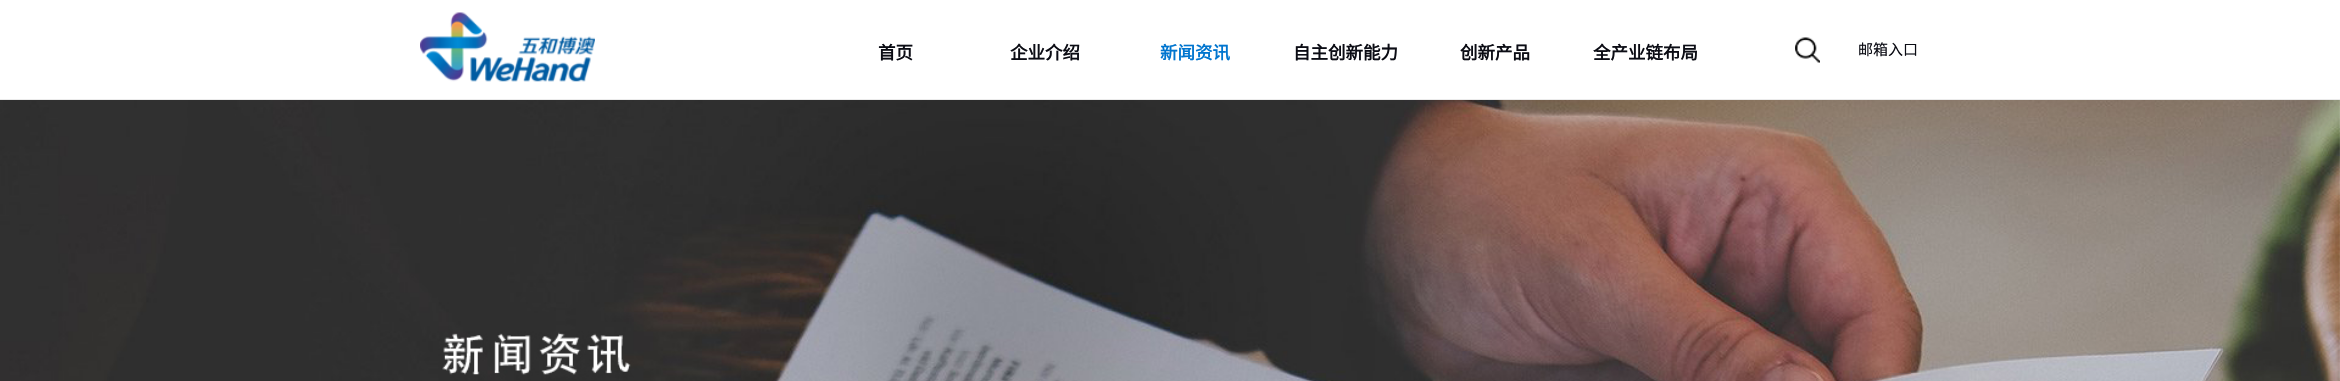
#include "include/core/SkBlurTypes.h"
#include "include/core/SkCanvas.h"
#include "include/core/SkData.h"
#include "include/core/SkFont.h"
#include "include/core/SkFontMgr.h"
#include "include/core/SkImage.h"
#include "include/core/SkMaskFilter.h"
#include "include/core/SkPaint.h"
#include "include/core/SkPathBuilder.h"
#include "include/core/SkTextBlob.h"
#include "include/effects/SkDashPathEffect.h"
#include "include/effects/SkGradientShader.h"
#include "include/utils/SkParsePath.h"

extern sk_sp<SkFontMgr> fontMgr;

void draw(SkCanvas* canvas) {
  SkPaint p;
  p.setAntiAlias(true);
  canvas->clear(SK_ColorWHITE);
  p.setColor(SkColorSetRGB(235, 235, 235));
  canvas->drawRect(SkRect::MakeLTRB(0, 99, 2340, 100), p);
  canvas->drawImageRect(SkImages::DeferredFromEncodedData(SkData::MakeFromFileName("images/1.png")), SkRect::MakeLTRB(420, 12, 595, 82), SkSamplingOptions());
  canvas->drawImageRect(SkImages::DeferredFromEncodedData(SkData::MakeFromFileName("images/2.png")), SkRect::MakeLTRB(1795, 37, 1820, 63), SkSamplingOptions());
  canvas->drawImageRect(SkImages::DeferredFromEncodedData(SkData::MakeFromFileName("images/3.png")), SkRect::MakeLTRB(0, 100, 2340, 381), SkSamplingOptions());
  SkFont font1(fontMgr->matchFamilyStyle("Noto Sans CJK SC", SkFontStyle::Bold()), 17.5f);
  font1.setSubpixel(true);
  p.setColor(SkColorSetRGB(11, 12, 20));
  canvas->drawString("首页", 878, 59, font1, p);
  canvas->drawString("企业介绍", 1010, 59, font1, p);
  p.setColor(SkColorSetRGB(0, 117, 207));
  canvas->drawString("新闻资讯", 1160, 59, font1, p);
  p.setColor(SkColorSetRGB(11, 12, 20));
  canvas->drawString("自主创新能力", 1293, 59, font1, p);
  canvas->drawString("创新产品", 1460, 59, font1, p);
  canvas->drawString("全产业链布局", 1593, 59, font1, p);
  SkFont font2(fontMgr->matchFamilyStyle("Noto Sans CJK SC", SkFontStyle::Normal()), 15);
  font2.setSubpixel(true);
  canvas->drawString("邮箱入口", 1858, 55, font2, p);
}
